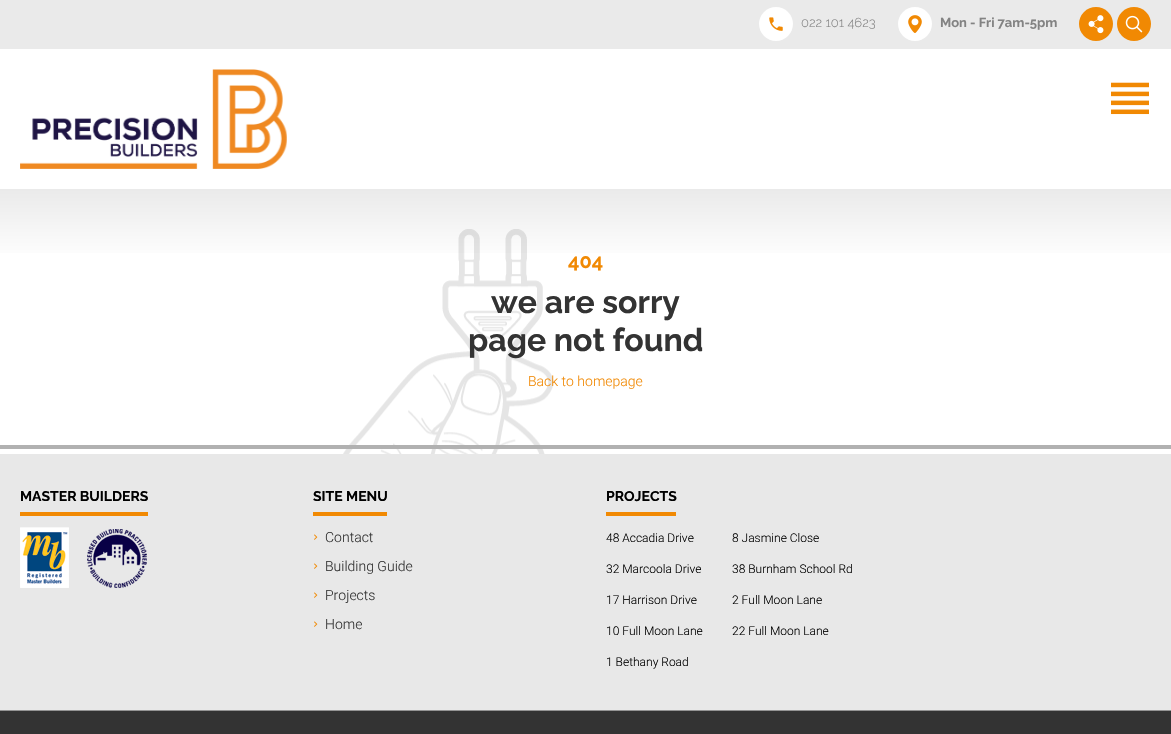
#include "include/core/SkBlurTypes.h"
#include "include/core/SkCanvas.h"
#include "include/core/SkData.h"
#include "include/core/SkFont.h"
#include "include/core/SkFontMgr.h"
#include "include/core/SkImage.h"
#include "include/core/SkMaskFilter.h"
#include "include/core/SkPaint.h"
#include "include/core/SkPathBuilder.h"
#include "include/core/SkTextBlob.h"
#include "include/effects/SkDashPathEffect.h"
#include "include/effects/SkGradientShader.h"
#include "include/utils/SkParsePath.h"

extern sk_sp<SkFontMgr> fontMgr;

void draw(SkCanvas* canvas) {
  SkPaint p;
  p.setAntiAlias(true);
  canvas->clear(SK_ColorWHITE);
  p.setColor(SkColorSetRGB(234, 234, 234));
  canvas->drawRect(SkRect::MakeLTRB(0, 0, 1171, 49), p);
  p.setColor(SK_ColorWHITE);
  canvas->drawCircle(776, 24, 17, p);
  canvas->drawImageRect(SkImages::DeferredFromEncodedData(SkData::MakeFromFileName("images/1.png")), SkRect::MakeLTRB(769, 17, 783, 31), SkSamplingOptions());
  canvas->drawCircle(915, 24, 17, p);
  canvas->drawImageRect(SkImages::DeferredFromEncodedData(SkData::MakeFromFileName("images/2.png")), SkRect::MakeLTRB(908, 15, 922, 33), SkSamplingOptions());
  p.setColor(SkColorSetRGB(241, 137, 3));
  canvas->drawCircle(1096, 24, 17, p);
  canvas->drawImageRect(SkImages::DeferredFromEncodedData(SkData::MakeFromFileName("images/3.png")), SkRect::MakeLTRB(1088, 15, 1104, 34), SkSamplingOptions());
  canvas->drawCircle(1134, 24, 17, p);
  canvas->drawImageRect(SkImages::DeferredFromEncodedData(SkData::MakeFromFileName("images/4.png")), SkRect::MakeLTRB(1125, 15, 1143, 33), SkSamplingOptions());
  canvas->drawImageRect(SkImages::DeferredFromEncodedData(SkData::MakeFromFileName("images/5.png")), SkRect::MakeLTRB(20, 69, 287, 169), SkSamplingOptions());
  canvas->drawImageRect(SkImages::DeferredFromEncodedData(SkData::MakeFromFileName("images/6.png")), SkRect::MakeLTRB(1111, 82, 1149, 115), SkSamplingOptions());
  {
    const SkColor colors[] = {SkColorSetRGB(234, 234, 234), SK_ColorWHITE};
    const float stops[] = {0, 1};
    const SkPoint ends[] = {{586, 189}, {586, 262}};
    p.setShader(SkGradientShader::MakeLinear(ends, colors, stops, 2, SkTileMode::kClamp));
    p.setAlpha(255);
  }
  canvas->drawRect(SkRect::MakeLTRB(0, 189, 1171, 253), p);
  canvas->drawImageRect(SkImages::DeferredFromEncodedData(SkData::MakeFromFileName("images/7.png")), SkRect::MakeLTRB(343, 229, 554, 454), SkSamplingOptions());
  p.setShader(nullptr);
  p.setColor(SkColorSetRGB(232, 232, 232));
  canvas->drawRect(SkRect::MakeLTRB(0, 454, 1171, 710), p);
  p.setColor(SkColorSetRGB(177, 177, 177));
  canvas->drawRect(SkRect::MakeLTRB(0, 445, 1171, 449), p);
  p.setColor(SkColorSetRGB(241, 137, 3));
  canvas->drawRect(SkRect::MakeLTRB(20, 512, 148, 516), p);
  canvas->drawImageRect(SkImages::DeferredFromEncodedData(SkData::MakeFromFileName("images/8.png")), SkRect::MakeLTRB(20, 527, 147, 588), SkSamplingOptions());
  canvas->drawRect(SkRect::MakeLTRB(313, 512, 387, 516), p);
  canvas->drawImageRect(SkImages::DeferredFromEncodedData(SkData::MakeFromFileName("images/9.png")), SkRect::MakeLTRB(314, 534, 318, 540), SkSamplingOptions());
  canvas->drawImageRect(SkImages::DeferredFromEncodedData(SkData::MakeFromFileName("images/9.png")), SkRect::MakeLTRB(314, 563, 318, 569), SkSamplingOptions());
  canvas->drawImageRect(SkImages::DeferredFromEncodedData(SkData::MakeFromFileName("images/9.png")), SkRect::MakeLTRB(314, 592, 318, 598), SkSamplingOptions());
  canvas->drawImageRect(SkImages::DeferredFromEncodedData(SkData::MakeFromFileName("images/9.png")), SkRect::MakeLTRB(314, 621, 318, 627), SkSamplingOptions());
  canvas->drawRect(SkRect::MakeLTRB(606, 512, 676, 516), p);
  p.setColor(SkColorSetRGB(51, 51, 51));
  canvas->drawRect(SkRect::MakeLTRB(0, 711, 1171, 734), p);
  p.setColor(SkColorSetRGB(148, 148, 148));
  canvas->drawRect(SkRect::MakeLTRB(0, 710, 1171, 711), p);
  SkFont font1(fontMgr->matchFamilyStyle("Raleway", SkFontStyle(300, SkFontStyle::kNormal_Width, SkFontStyle::kUpright_Slant)), 13);
  font1.setSubpixel(true);
  p.setColor(SkColorSetRGB(131, 131, 131));
  canvas->drawString("022 101 4623", 801, 27, font1, p);
  SkFont font2(fontMgr->matchFamilyStyle("Raleway", SkFontStyle::Bold()), 13);
  font2.setSubpixel(true);
  canvas->drawString("Mon - Fri 7am-5pm", 940, 27, font2, p);
  SkFont font3(fontMgr->matchFamilyStyle("Raleway", SkFontStyle::Bold()), 20);
  font3.setSubpixel(true);
  p.setColor(SkColorSetRGB(241, 137, 3));
  canvas->drawString("404", 568, 268, font3, p);
  SkFont font4(fontMgr->matchFamilyStyle("Raleway", SkFontStyle::Bold()), 32);
  font4.setSubpixel(true);
  p.setColor(SkColorSetRGB(51, 51, 51));
  canvas->drawString("we are sorry", 491, 313, font4, p);
  canvas->drawString("page not found", 468, 351, font4, p);
  SkFont font5(fontMgr->matchFamilyStyle("Roboto", SkFontStyle(300, SkFontStyle::kNormal_Width, SkFontStyle::kUpright_Slant)), 14);
  font5.setSubpixel(true);
  p.setColor(SkColorSetRGB(241, 137, 3));
  canvas->drawString("Back to homepage", 528, 386, font5, p);
  SkFont font6(fontMgr->matchFamilyStyle("Raleway", SkFontStyle::Bold()), 14);
  font6.setSubpixel(true);
  p.setColor(SK_ColorBLACK);
  canvas->drawString("MASTER BUILDERS", 20, 501, font6, p);
  canvas->drawString("SITE MENU", 313, 501, font6, p);
  p.setColor(SkColorSetRGB(51, 51, 51));
  canvas->drawString("Contact", 325, 542, font5, p);
  canvas->drawString("Building Guide", 325, 571, font5, p);
  canvas->drawString("Projects", 325, 600, font5, p);
  canvas->drawString("Home", 325, 629, font5, p);
  p.setColor(SK_ColorBLACK);
  canvas->drawString("PROJECTS", 606, 501, font6, p);
  SkFont font7(fontMgr->matchFamilyStyle("Roboto", SkFontStyle(300, SkFontStyle::kNormal_Width, SkFontStyle::kUpright_Slant)), 12);
  font7.setSubpixel(true);
  canvas->drawString("48 Accadia Drive", 606, 542, font7, p);
  canvas->drawString("8 Jasmine Close", 732, 542, font7, p);
  canvas->drawString("32 Marcoola Drive", 606, 573, font7, p);
  canvas->drawString("38 Burnham School Rd", 732, 573, font7, p);
  canvas->drawString("17 Harrison Drive", 606, 604, font7, p);
  canvas->drawString("2 Full Moon Lane", 732, 604, font7, p);
  canvas->drawString("10 Full Moon Lane", 606, 635, font7, p);
  canvas->drawString("22 Full Moon Lane", 732, 635, font7, p);
  canvas->drawString("1 Bethany Road", 606, 666, font7, p);
}
